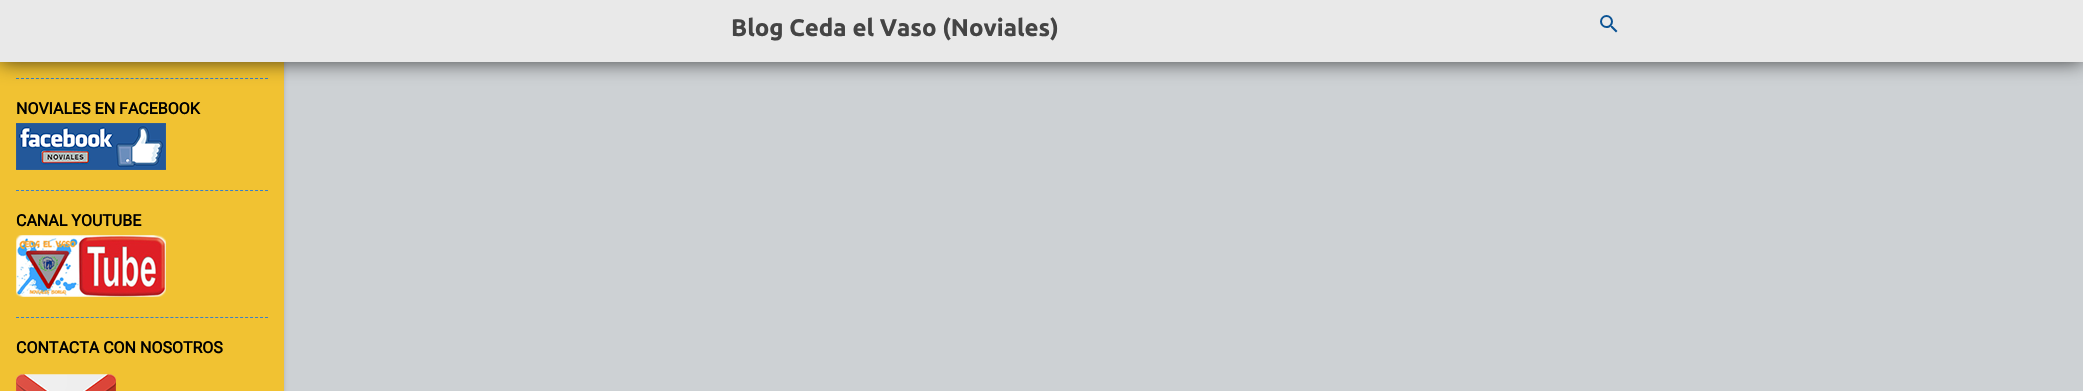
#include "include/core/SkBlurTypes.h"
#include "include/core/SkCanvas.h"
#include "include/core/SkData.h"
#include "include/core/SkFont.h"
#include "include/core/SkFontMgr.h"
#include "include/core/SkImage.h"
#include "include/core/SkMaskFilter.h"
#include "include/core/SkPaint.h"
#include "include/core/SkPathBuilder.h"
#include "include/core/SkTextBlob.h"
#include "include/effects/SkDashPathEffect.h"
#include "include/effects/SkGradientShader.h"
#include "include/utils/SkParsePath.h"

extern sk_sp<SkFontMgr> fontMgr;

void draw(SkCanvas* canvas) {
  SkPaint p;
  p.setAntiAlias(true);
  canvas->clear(SkColorSetRGB(205, 209, 212));
  p.setColor(SkColorSetARGB(26, 0, 0, 0));
  p.setMaskFilter(SkMaskFilter::MakeBlur(kNormal_SkBlurStyle, 1.5f));
  canvas->drawRect(SkRect::MakeLTRB(1, -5, 285, 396), p);
  p.setMaskFilter(nullptr);
  p.setColor(SkColorSetRGB(241, 194, 50));
  canvas->drawRect(SkRect::MakeLTRB(0, 62, 284, 391), p);
  p.setStyle(SkPaint::kStroke_Style);
  p.setStrokeWidth(1);
  p.setColor(SkColorSetRGB(58, 129, 199));
  p.setPathEffect(SkDashPathEffect::Make({{3, 1.98f}}, 0));
  canvas->drawPath(SkPathBuilder().moveTo(16, 78.5f).lineTo(268, 78.5f).detach(), p);
  p.setPathEffect(nullptr);
  p.setStyle(SkPaint::kFill_Style);
  p.setColor(SkColorSetARGB(179, 0, 0, 0));
  p.setMaskFilter(SkMaskFilter::MakeBlur(kNormal_SkBlurStyle, 10));
  canvas->drawRect(SkRect::MakeLTRB(0, 0, 2083, 62), p);
  p.setMaskFilter(nullptr);
  p.setColor(SkColorSetRGB(233, 233, 233));
  canvas->drawRect(SkRect::MakeLTRB(0, 0, 2083, 62), p);
  canvas->drawImageRect(SkImages::DeferredFromEncodedData(SkData::MakeFromFileName("images/1.png")), SkRect::MakeLTRB(1600, 15, 1618, 33), SkSamplingOptions());
  canvas->drawImageRect(SkImages::DeferredFromEncodedData(SkData::MakeFromFileName("images/2.png")), SkRect::MakeLTRB(16, 123, 166, 170), SkSamplingOptions());
  p.setStyle(SkPaint::kStroke_Style);
  p.setColor(SkColorSetRGB(58, 129, 199));
  p.setPathEffect(SkDashPathEffect::Make({{3, 1.98f}}, 0));
  canvas->drawPath(SkPathBuilder().moveTo(16, 190.5f).lineTo(268, 190.5f).detach(), p);
  p.setPathEffect(nullptr);
  canvas->drawImageRect(SkImages::DeferredFromEncodedData(SkData::MakeFromFileName("images/3.png")), SkRect::MakeLTRB(16, 235, 166, 297), SkSamplingOptions());
  p.setPathEffect(SkDashPathEffect::Make({{3, 1.98f}}, 0));
  canvas->drawPath(SkPathBuilder().moveTo(16, 317.5f).lineTo(268, 317.5f).detach(), p);
  p.setPathEffect(nullptr);
  canvas->drawImageRect(SkImages::DeferredFromEncodedData(SkData::MakeFromFileName("images/4.png")), SkRect::MakeLTRB(16, 374, 116, 391), SkSamplingOptions());
  SkFont font1(fontMgr->matchFamilyStyle("Ubuntu", SkFontStyle::Bold()), 24);
  font1.setSubpixel(true);
  p.setStyle(SkPaint::kFill_Style);
  p.setColor(SkColorSetRGB(68, 68, 68));
  canvas->drawString("Blog Ceda el Vaso (Noviales)", 731, 36, font1, p);
  SkFont font2(fontMgr->matchFamilyStyle("Roboto", SkFontStyle::Bold()), 16);
  font2.setSubpixel(true);
  p.setColor(SK_ColorBLACK);
  canvas->drawString("NOVIALES EN FACEBOOK", 16, 114, font2, p);
  canvas->drawString("CANAL YOUTUBE", 16, 226, font2, p);
  canvas->drawString("CONTACTA CON NOSOTROS", 16, 353, font2, p);
}
